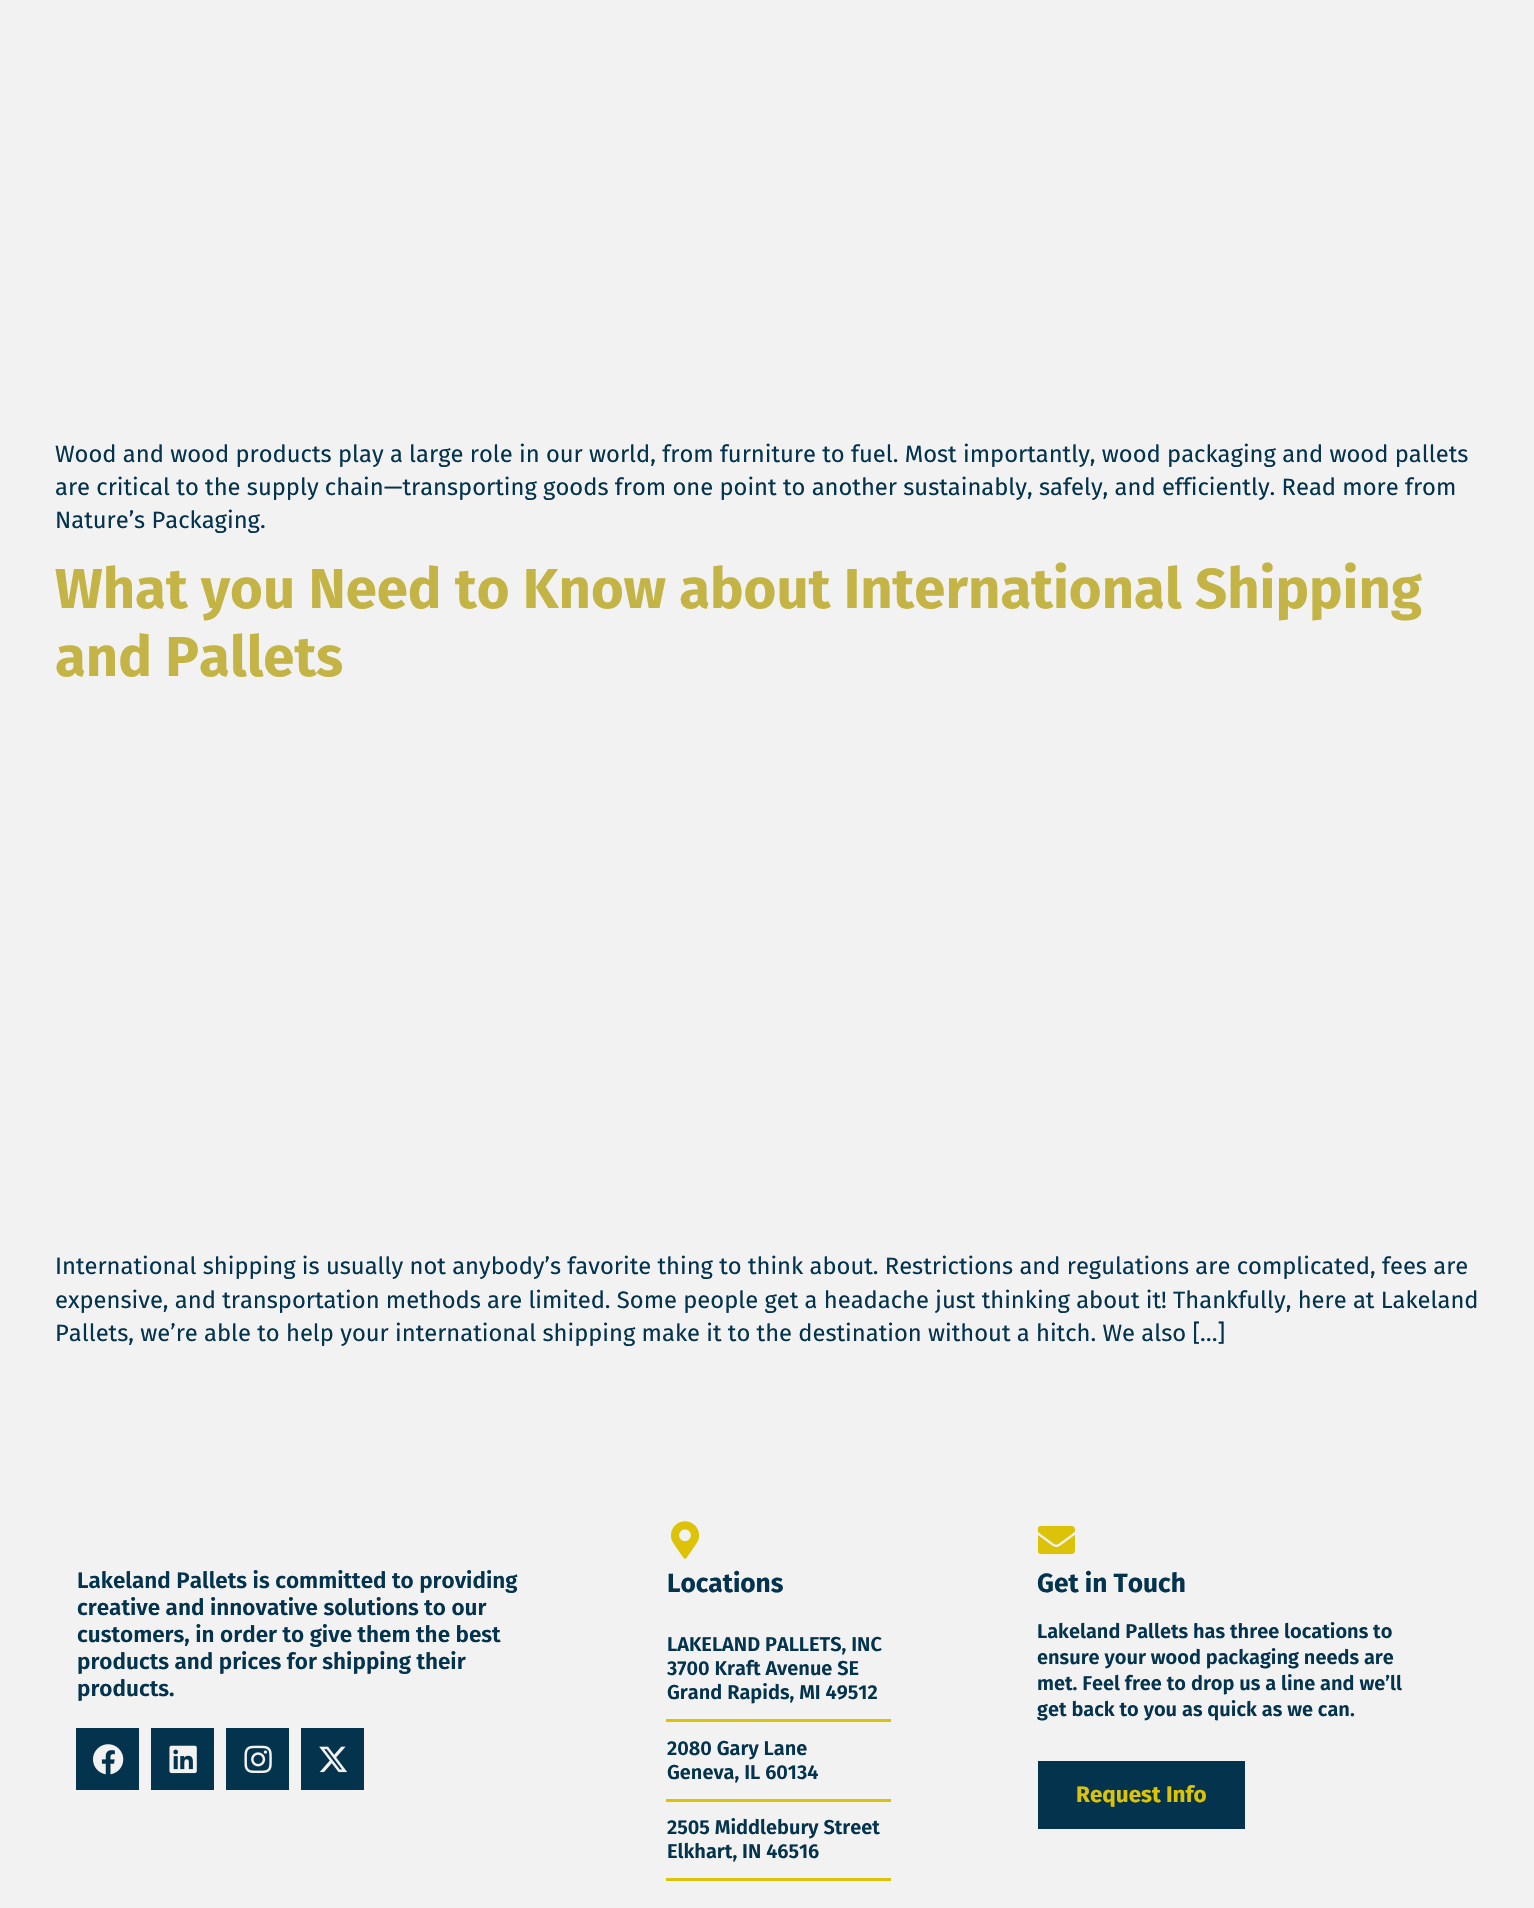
#include "include/core/SkBlurTypes.h"
#include "include/core/SkCanvas.h"
#include "include/core/SkData.h"
#include "include/core/SkFont.h"
#include "include/core/SkFontMgr.h"
#include "include/core/SkImage.h"
#include "include/core/SkMaskFilter.h"
#include "include/core/SkPaint.h"
#include "include/core/SkPathBuilder.h"
#include "include/core/SkTextBlob.h"
#include "include/effects/SkDashPathEffect.h"
#include "include/effects/SkGradientShader.h"
#include "include/utils/SkParsePath.h"

extern sk_sp<SkFontMgr> fontMgr;

void draw(SkCanvas* canvas) {
  SkPaint p;
  p.setAntiAlias(true);
  canvas->clear(SkColorSetRGB(242, 242, 242));
  p.setColor(SkColorSetRGB(3, 51, 77));
  canvas->drawRect(SkRect::MakeLTRB(76, 1728, 139, 1790), p);
  canvas->drawImageRect(SkImages::DeferredFromEncodedData(SkData::MakeFromFileName("images/1.png")), SkRect::MakeLTRB(93, 1744, 124, 1775), SkSamplingOptions());
  canvas->drawRect(SkRect::MakeLTRB(151, 1728, 214, 1790), p);
  canvas->drawImageRect(SkImages::DeferredFromEncodedData(SkData::MakeFromFileName("images/2.png")), SkRect::MakeLTRB(169, 1745, 197, 1774), SkSamplingOptions());
  canvas->drawRect(SkRect::MakeLTRB(226, 1728, 289, 1790), p);
  canvas->drawImageRect(SkImages::DeferredFromEncodedData(SkData::MakeFromFileName("images/3.png")), SkRect::MakeLTRB(244, 1745, 272, 1774), SkSamplingOptions());
  canvas->drawRect(SkRect::MakeLTRB(301, 1728, 364, 1790), p);
  canvas->drawImageRect(SkImages::DeferredFromEncodedData(SkData::MakeFromFileName("images/4.png")), SkRect::MakeLTRB(319, 1746, 348, 1773), SkSamplingOptions());
  canvas->drawImageRect(SkImages::DeferredFromEncodedData(SkData::MakeFromFileName("images/5.png")), SkRect::MakeLTRB(670, 1521, 700, 1559), SkSamplingOptions());
  p.setColor(SkColorSetRGB(221, 195, 7));
  canvas->drawRect(SkRect::MakeLTRB(666, 1719, 891, 1722), p);
  canvas->drawRect(SkRect::MakeLTRB(666, 1799, 891, 1802), p);
  canvas->drawRect(SkRect::MakeLTRB(666, 1878, 891, 1881), p);
  canvas->drawImageRect(SkImages::DeferredFromEncodedData(SkData::MakeFromFileName("images/6.png")), SkRect::MakeLTRB(1038, 1525, 1075, 1555), SkSamplingOptions());
  p.setColor(SkColorSetRGB(3, 51, 77));
  canvas->drawRect(SkRect::MakeLTRB(1038, 1761, 1245, 1829), p);
  SkFont font1(fontMgr->matchFamilyStyle("Fira Sans", SkFontStyle::Normal()), 23.75f);
  font1.setSubpixel(true);
  canvas->drawString("Wood and wood products play a large role in our world, from furniture to fuel. Most importantly, wood packaging and wood pallets", 55, 462, font1, p);
  canvas->drawString("are critical to the supply chain—transporting goods from one point to another sustainably, safely, and efficiently. Read more from", 55, 495, font1, p);
  canvas->drawString("Nature’s Packaging.", 55, 528, font1, p);
  SkFont font2(fontMgr->matchFamilyStyle("Fira Sans", SkFontStyle::Bold()), 56.25f);
  font2.setSubpixel(true);
  p.setColor(SkColorSetRGB(196, 180, 70));
  canvas->drawString("What you Need to Know about International Shipping", 55, 608, font2, p);
  canvas->drawString("and Pallets", 55, 676, font2, p);
  p.setColor(SkColorSetRGB(3, 51, 77));
  canvas->drawString("International shipping is usually not anybody’s favorite thing to think about. Restrictions and regulations are complicated, fees are", 55, 1274, font1, p);
  canvas->drawString("expensive, and transportation methods are limited. Some people get a headache just thinking about it! Thankfully, here at Lakeland", 55, 1308, font1, p);
  canvas->drawString("Pallets, we’re able to help your international shipping make it to the destination without a hitch. We also […]", 55, 1341, font1, p);
  SkFont font3(fontMgr->matchFamilyStyle("Fira Sans", SkFontStyle(600, SkFontStyle::kNormal_Width, SkFontStyle::kUpright_Slant)), 22.5f);
  font3.setSubpixel(true);
  canvas->drawString("Lakeland Pallets is committed to providing", 77, 1588, font3, p);
  canvas->drawString("creative and innovative solutions to our", 77, 1615, font3, p);
  canvas->drawString("customers, in order to give them the best", 77, 1642, font3, p);
  canvas->drawString("products and prices for shipping their", 77, 1669, font3, p);
  canvas->drawString("products.", 77, 1696, font3, p);
  SkFont font4(fontMgr->matchFamilyStyle("Fira Sans", SkFontStyle::Bold()), 26.25f);
  font4.setSubpixel(true);
  canvas->drawString("Locations", 667, 1592, font4, p);
  SkFont font5(fontMgr->matchFamilyStyle("Fira Sans", SkFontStyle(600, SkFontStyle::kNormal_Width, SkFontStyle::kUpright_Slant)), 20);
  font5.setSubpixel(true);
  canvas->drawString("LAKELAND PALLETS, INC", 667, 1651, font5, p);
  canvas->drawString("3700 Kraft Avenue SE", 667, 1675, font5, p);
  canvas->drawString("Grand Rapids, MI 49512", 667, 1699, font5, p);
  canvas->drawString("2080 Gary Lane", 667, 1755, font5, p);
  canvas->drawString("Geneva, IL 60134", 667, 1779, font5, p);
  canvas->drawString("2505 Middlebury Street", 667, 1834, font5, p);
  canvas->drawString("Elkhart, IN 46516", 667, 1858, font5, p);
  canvas->drawString("Get in Touch", 1037, 1592, font4, p);
  canvas->drawString("Lakeland Pallets has three locations to", 1037, 1638, font5, p);
  canvas->drawString("ensure your wood packaging needs are", 1037, 1664, font5, p);
  canvas->drawString("met. Feel free to drop us a line and we’ll", 1037, 1690, font5, p);
  canvas->drawString("get back to you as quick as we can.", 1037, 1716, font5, p);
  SkFont font6(fontMgr->matchFamilyStyle("Fira Sans", SkFontStyle::Bold()), 22.5f);
  font6.setSubpixel(true);
  p.setColor(SkColorSetRGB(221, 195, 7));
  canvas->drawString("Request Info", 1076, 1802, font6, p);
}
